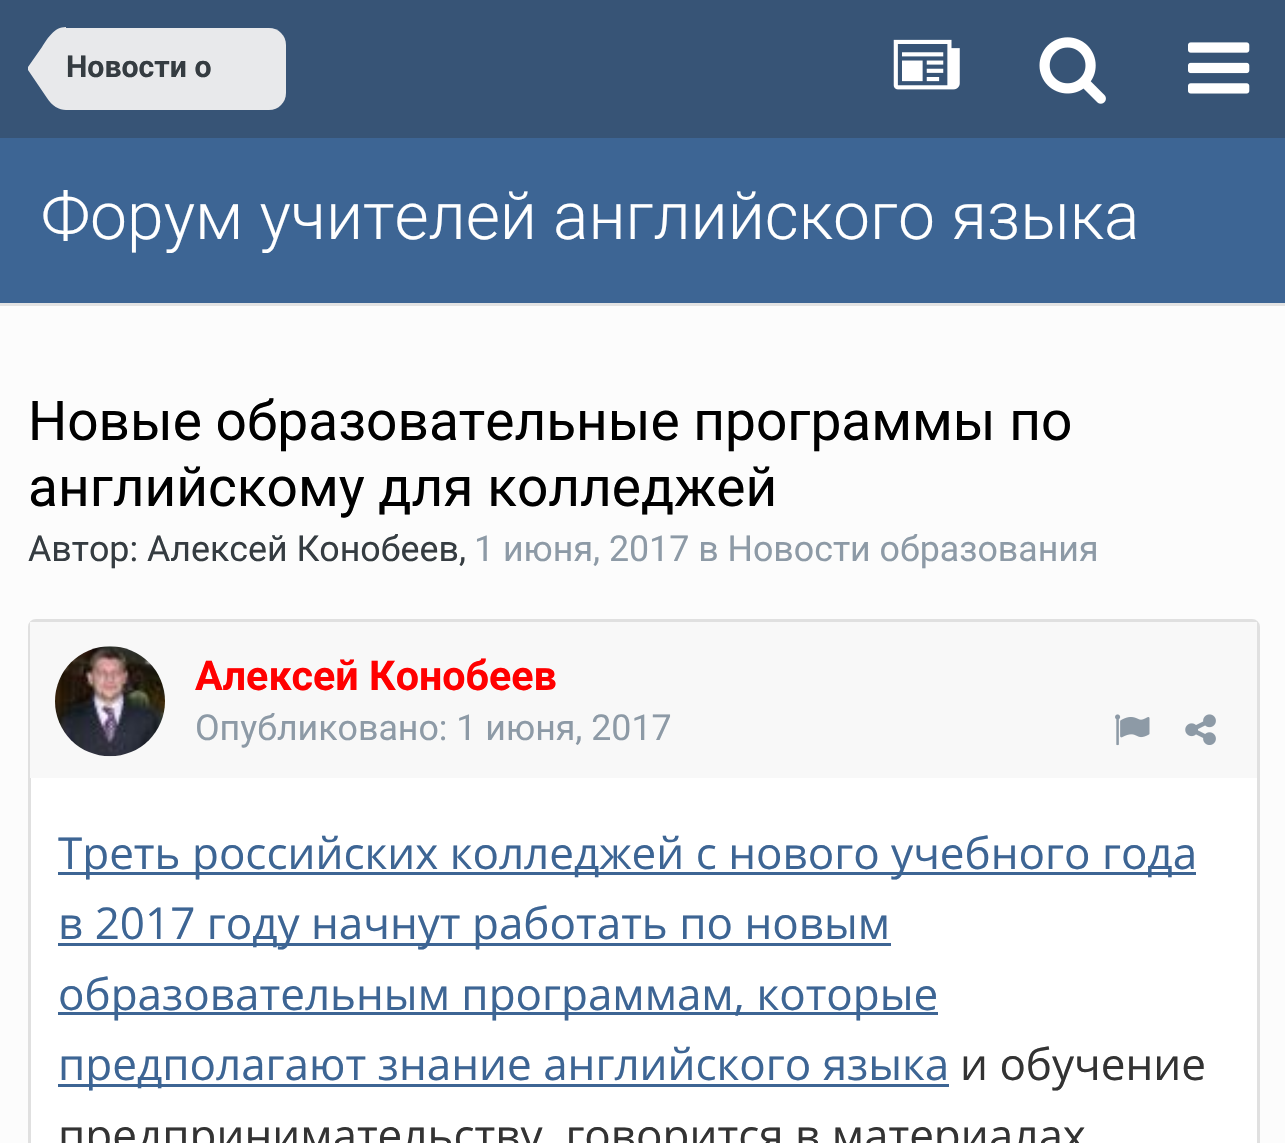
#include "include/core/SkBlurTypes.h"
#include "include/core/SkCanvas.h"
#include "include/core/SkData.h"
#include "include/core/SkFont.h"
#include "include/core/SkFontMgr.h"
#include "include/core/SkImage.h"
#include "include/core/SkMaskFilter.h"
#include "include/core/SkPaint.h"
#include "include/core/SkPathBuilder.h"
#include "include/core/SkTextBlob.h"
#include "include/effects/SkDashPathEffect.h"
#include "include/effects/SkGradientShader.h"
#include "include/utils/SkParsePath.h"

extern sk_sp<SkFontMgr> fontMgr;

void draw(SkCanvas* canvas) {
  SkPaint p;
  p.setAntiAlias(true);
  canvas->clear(SkColorSetRGB(252, 252, 252));
  p.setColor(SkColorSetRGB(227, 227, 227));
  canvas->drawRect(SkRect::MakeLTRB(0, 303, 1285, 306), p);
  p.setColor(SkColorSetRGB(55, 84, 118));
  canvas->drawRect(SkRect::MakeLTRB(0, 0, 1285, 138), p);
  p.setColor(SkColorSetRGB(232, 233, 235));
  canvas->drawPath(SkPathBuilder().moveTo(66, 28).lineTo(269, 28).cubicTo(278.5f, 28, 286, 35.5f, 286, 45).lineTo(286, 93).cubicTo(286, 102.5f, 278.5f, 110, 269, 110).lineTo(66, 110).close().detach(), p);
  canvas->drawPath(SkPathBuilder().moveTo(28, 69).lineTo(66, 69).lineTo(66, 110).cubicTo(59, 110, 52, 106, 47, 98).lineTo(28, 70).close().detach(), p);
  canvas->drawPath(SkPathBuilder().moveTo(66, 27).lineTo(66, 69).lineTo(28, 69).lineTo(28, 67).lineTo(42, 47).cubicTo(48, 38, 54, 27, 66, 27).close().detach(), p);
  canvas->drawImageRect(SkImages::DeferredFromEncodedData(SkData::MakeFromFileName("images/1.png")), SkRect::MakeLTRB(893, 39, 960, 90), SkSamplingOptions());
  canvas->drawImageRect(SkImages::DeferredFromEncodedData(SkData::MakeFromFileName("images/2.png")), SkRect::MakeLTRB(1039, 37, 1106, 104), SkSamplingOptions());
  canvas->drawImageRect(SkImages::DeferredFromEncodedData(SkData::MakeFromFileName("images/3.png")), SkRect::MakeLTRB(1188, 42, 1250, 94), SkSamplingOptions());
  p.setColor(SkColorSetRGB(61, 101, 148));
  canvas->drawRect(SkRect::MakeLTRB(0, 138, 1285, 303), p);
  p.setColor(SK_ColorWHITE);
  canvas->drawRoundRect(SkRect::MakeLTRB(29.5f, 620.5f, 1258.5f, 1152.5f), 6.5f, 6.5f, p);
  p.setStyle(SkPaint::kStroke_Style);
  p.setStrokeWidth(3);
  p.setColor(SkColorSetRGB(224, 224, 224));
  canvas->drawRoundRect(SkRect::MakeLTRB(29.5f, 620.5f, 1258.5f, 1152.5f), 6.5f, 6.5f, p);
  p.setStyle(SkPaint::kFill_Style);
  p.setColor(SkColorSetRGB(248, 248, 248));
  canvas->drawRect(SkRect::MakeLTRB(30, 622, 1257, 778), p);
  p.setColor(SK_ColorWHITE);
  canvas->drawCircle(110, 701, 55, p);
  canvas->drawImageRect(SkImages::DeferredFromEncodedData(SkData::MakeFromFileName("images/4.png")), SkRect::MakeLTRB(55, 646, 165, 757), SkSamplingOptions());
  canvas->drawImageRect(SkImages::DeferredFromEncodedData(SkData::MakeFromFileName("images/5.png")), SkRect::MakeLTRB(1115, 714, 1150, 746), SkSamplingOptions());
  canvas->drawImageRect(SkImages::DeferredFromEncodedData(SkData::MakeFromFileName("images/6.png")), SkRect::MakeLTRB(1185, 714, 1216, 745), SkSamplingOptions());
  p.setColor(SkColorSetRGB(61, 101, 148));
  canvas->drawRect(SkRect::MakeLTRB(58, 872, 1196, 875), p);
  canvas->drawRect(SkRect::MakeLTRB(58, 943, 891, 946), p);
  canvas->drawRect(SkRect::MakeLTRB(58, 1012, 938, 1015), p);
  canvas->drawRect(SkRect::MakeLTRB(58, 1084, 949, 1087), p);
  SkFont font1(fontMgr->matchFamilyStyle("Roboto", SkFontStyle::Bold()), 30.25f);
  font1.setSubpixel(true);
  p.setColor(SkColorSetRGB(53, 60, 65));
  canvas->drawString("Новости о...", 66, 77, font1, p);
  SkFont font2(fontMgr->matchFamilyStyle("Roboto", SkFontStyle(300, SkFontStyle::kNormal_Width, SkFontStyle::kUpright_Slant)), 66);
  font2.setSubpixel(true);
  p.setColor(SK_ColorWHITE);
  canvas->drawString("Форум учителей английского языка", 41, 239, font2, p);
  SkFont font3(fontMgr->matchFamilyStyle("Roboto", SkFontStyle::Normal()), 55);
  font3.setSubpixel(true);
  p.setColor(SK_ColorBLACK);
  canvas->drawString("Новые образовательные программы по", 28, 440, font3, p);
  canvas->drawString("английскому для колледжей", 28, 506, font3, p);
  SkFont font4(fontMgr->matchFamilyStyle("Roboto", SkFontStyle::Normal()), 35.75f);
  font4.setSubpixel(true);
  p.setColor(SkColorSetRGB(53, 60, 65));
  canvas->drawString("Автор: Алексей Конобеев,", 28, 561, font4, p);
  p.setColor(SkColorSetRGB(141, 154, 166));
  canvas->drawString("1 июня, 2017 в Новости образования", 474, 561, font4, p);
  SkFont font5(fontMgr->matchFamilyStyle("Roboto", SkFontStyle::Bold()), 41.25f);
  font5.setSubpixel(true);
  p.setColor(SkColorSetRGB(255, 0, 0));
  canvas->drawString("Алексей Конобеев", 195, 690, font5, p);
  p.setColor(SkColorSetRGB(141, 154, 166));
  canvas->drawString("Опубликовано: 1 июня, 2017", 195, 740, font4, p);
  SkFont font6(fontMgr->matchFamilyStyle("Open Sans", SkFontStyle::Normal()), 44);
  font6.setSubpixel(true);
  p.setColor(SkColorSetRGB(61, 101, 148));
  canvas->drawString("Треть российских колледжей с нового учебного года", 58, 869, font6, p);
  canvas->drawString("в 2017 году начнут работать по новым", 58, 939, font6, p);
  canvas->drawString("образовательным программам, которые", 58, 1010, font6, p);
  canvas->drawString("предполагают знание английского языка", 58, 1080, font6, p);
  p.setColor(SkColorSetRGB(51, 51, 51));
  canvas->drawString("и обучение", 960, 1080, font6, p);
  canvas->drawString("предпринимательству, говорится в материалах", 58, 1151, font6, p);
}
